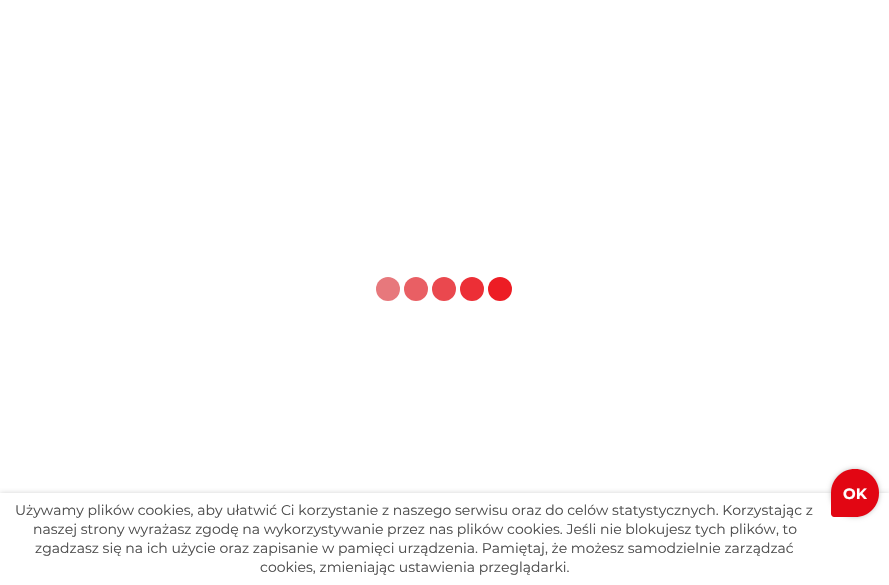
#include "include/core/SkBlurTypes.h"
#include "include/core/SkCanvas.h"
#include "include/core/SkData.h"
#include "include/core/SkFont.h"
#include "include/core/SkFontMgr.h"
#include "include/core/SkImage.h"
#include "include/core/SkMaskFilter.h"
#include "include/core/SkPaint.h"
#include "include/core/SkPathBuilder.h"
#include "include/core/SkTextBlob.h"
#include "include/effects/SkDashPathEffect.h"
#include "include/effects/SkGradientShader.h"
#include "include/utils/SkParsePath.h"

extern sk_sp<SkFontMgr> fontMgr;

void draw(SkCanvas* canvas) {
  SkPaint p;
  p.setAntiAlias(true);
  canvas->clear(SK_ColorWHITE);
  p.setColor(SkColorSetRGB(231, 120, 124));
  canvas->drawCircle(388, 289, 12, p);
  p.setColor(SkColorSetRGB(233, 95, 100));
  canvas->drawCircle(416, 289, 12, p);
  p.setColor(SkColorSetRGB(234, 72, 78));
  canvas->drawCircle(444, 289, 12, p);
  p.setColor(SkColorSetRGB(236, 47, 54));
  canvas->drawCircle(472, 289, 12, p);
  p.setColor(SkColorSetRGB(237, 29, 36));
  canvas->drawCircle(500, 289, 12, p);
  canvas->save();
  canvas->clipRect(SkRect::MakeLTRB(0, 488, 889, 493));
  p.setColor(SkColorSetRGB(212, 212, 212));
  p.setMaskFilter(SkMaskFilter::MakeBlur(kNormal_SkBlurStyle, 2.5f));
  canvas->drawRect(SkRect::MakeLTRB(0, 493, 889, 585), p);
  p.setMaskFilter(nullptr);
  canvas->restore();
  p.setColor(SkColorSetRGB(192, 192, 192));
  p.setMaskFilter(SkMaskFilter::MakeBlur(kNormal_SkBlurStyle, 2.5f));
  canvas->drawRoundRect(SkRect::MakeLTRB(831, 469, 879, 517), 24, 24, p);
  p.setMaskFilter(nullptr);
  p.setColor(SkColorSetRGB(226, 6, 19));
  canvas->drawPath(SkPathBuilder().moveTo(855, 469).cubicTo(868.5f, 469, 879, 479.5f, 879, 493).cubicTo(879, 506.5f, 868.5f, 517, 855, 517).lineTo(834, 517).cubicTo(832.5f, 517, 831, 515.5f, 831, 514).lineTo(831, 493).cubicTo(831, 479.5f, 841.5f, 469, 855, 469).close().detach(), p);
  SkFont font1(fontMgr->matchFamilyStyle("Montserrat", SkFontStyle::Bold()), 15);
  font1.setSubpixel(true);
  p.setColor(SK_ColorWHITE);
  canvas->drawString("OK", 843, 499, font1, p);
  SkFont font2(fontMgr->matchFamilyStyle("Montserrat", SkFontStyle::Normal()), 14);
  font2.setSubpixel(true);
  p.setColor(SkColorSetRGB(77, 77, 77));
  canvas->drawString("Używamy plików cookies, aby ułatwić Ci korzystanie z naszego serwisu oraz do celów statystycznych. Korzystając z", 15, 515, font2, p);
  canvas->drawString("naszej strony wyrażasz zgodę na wykorzystywanie przez nas plików cookies. Jeśli nie blokujesz tych plików, to", 33, 534, font2, p);
  canvas->drawString("zgadzasz się na ich użycie oraz zapisanie w pamięci urządzenia. Pamiętaj, że możesz samodzielnie zarządzać", 35, 553, font2, p);
  canvas->drawString("cookies, zmieniając ustawienia przeglądarki.", 260, 572, font2, p);
}
